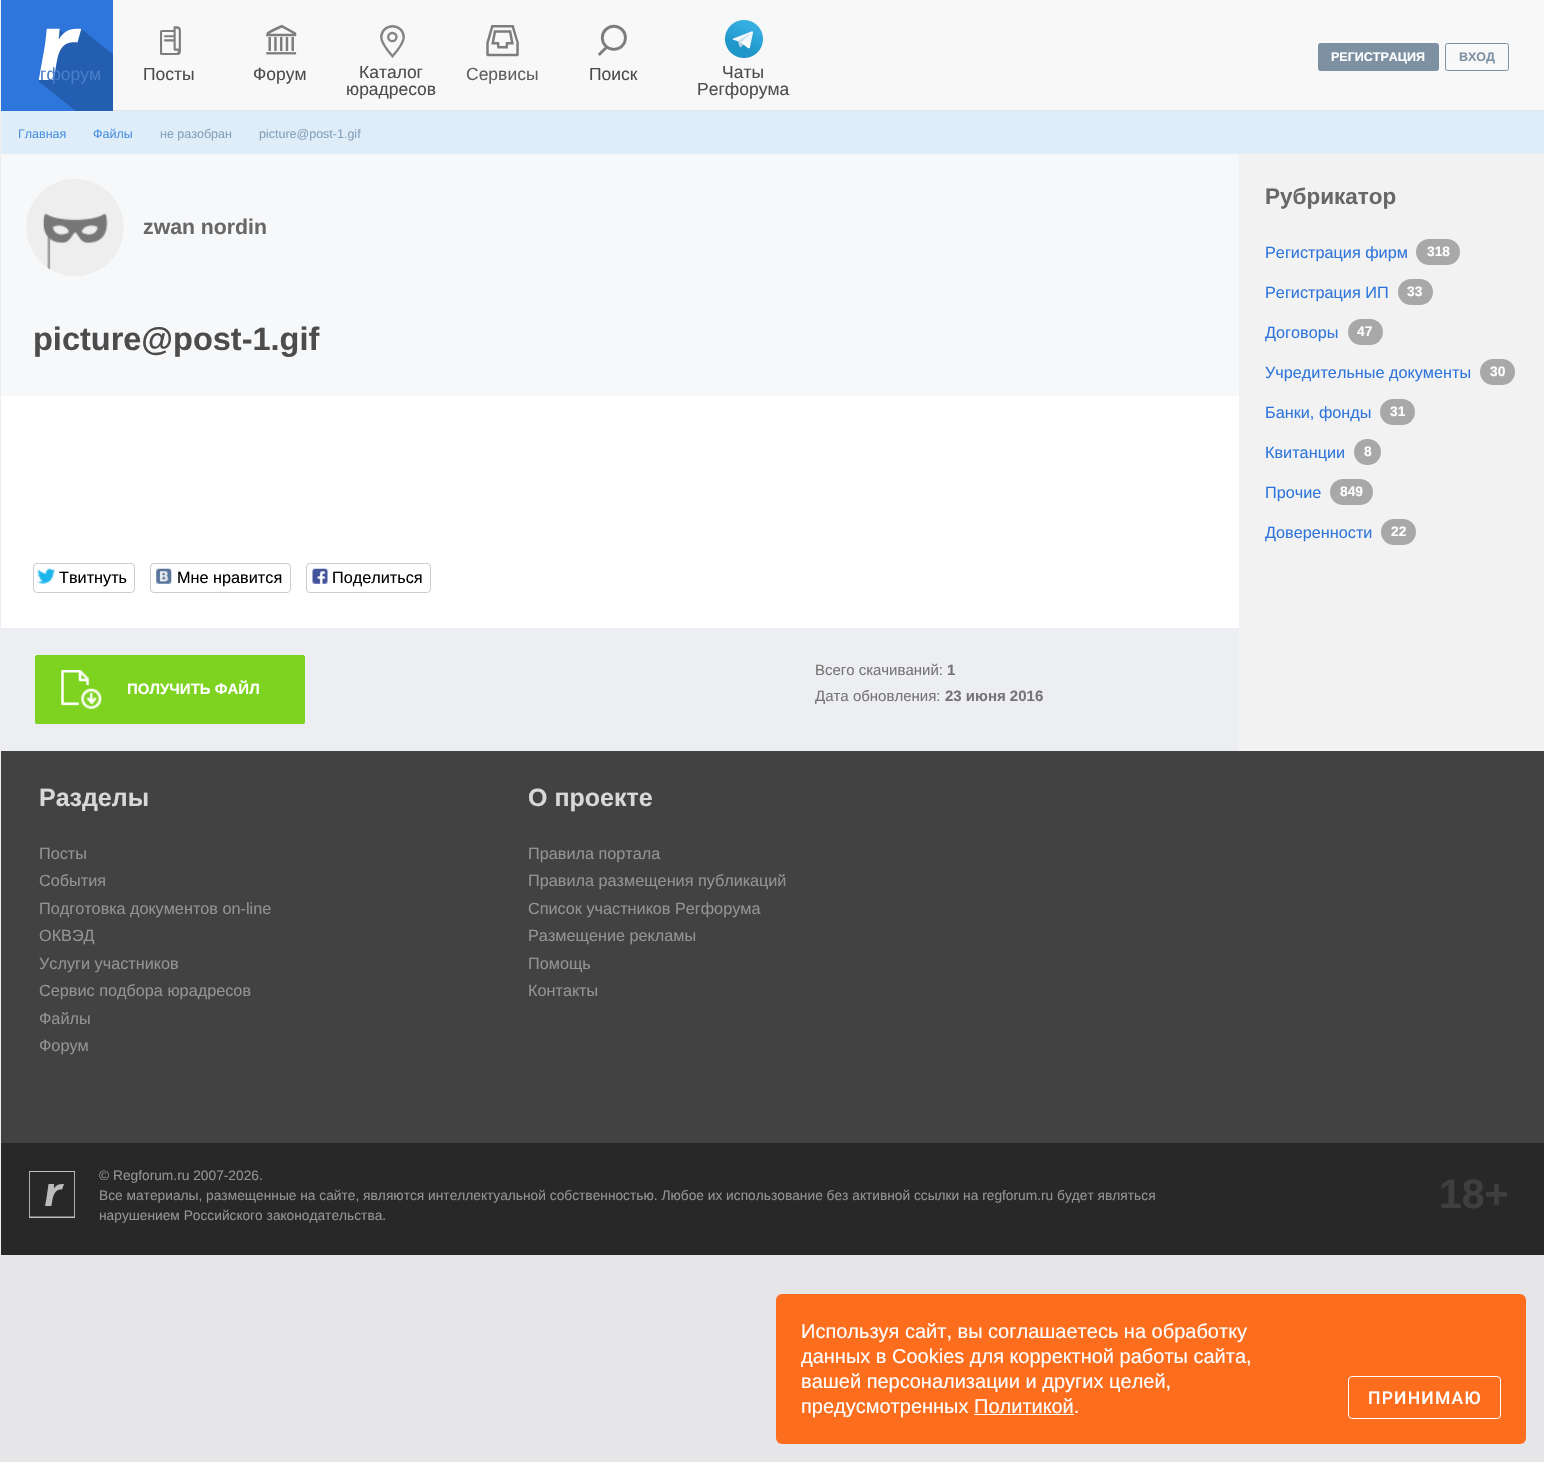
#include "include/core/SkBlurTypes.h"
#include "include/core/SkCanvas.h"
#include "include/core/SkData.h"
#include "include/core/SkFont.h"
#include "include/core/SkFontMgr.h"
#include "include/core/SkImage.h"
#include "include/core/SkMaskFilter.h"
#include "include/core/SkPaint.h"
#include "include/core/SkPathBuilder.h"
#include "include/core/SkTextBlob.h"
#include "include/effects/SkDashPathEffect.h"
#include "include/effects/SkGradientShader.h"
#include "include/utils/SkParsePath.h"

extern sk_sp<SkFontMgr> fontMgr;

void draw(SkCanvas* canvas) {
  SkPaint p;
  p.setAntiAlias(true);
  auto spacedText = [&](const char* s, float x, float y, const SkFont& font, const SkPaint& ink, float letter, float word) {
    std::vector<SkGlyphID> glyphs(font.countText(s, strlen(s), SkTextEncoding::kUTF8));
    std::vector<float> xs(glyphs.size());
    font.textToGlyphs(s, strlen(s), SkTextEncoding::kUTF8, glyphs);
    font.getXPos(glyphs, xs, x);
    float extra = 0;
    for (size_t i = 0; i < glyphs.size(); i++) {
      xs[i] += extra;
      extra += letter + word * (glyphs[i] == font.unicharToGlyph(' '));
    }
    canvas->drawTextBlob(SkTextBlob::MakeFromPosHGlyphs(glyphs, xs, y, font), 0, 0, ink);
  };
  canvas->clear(SK_ColorWHITE);
  canvas->drawImageRect(SkImages::DeferredFromEncodedData(SkData::MakeFromFileName("images/1.png")), SkRect::MakeLTRB(0, 1255, 1544, 1462), SkSamplingOptions());
  p.setColor(SkColorSetRGB(238, 238, 238));
  canvas->drawRect(SkRect::MakeLTRB(0, 0, 1, 1255), p);
  p.setColor(SkColorSetRGB(248, 248, 248));
  canvas->drawRect(SkRect::MakeLTRB(113, 0, 1544, 110), p);
  p.setColor(SkColorSetRGB(228, 228, 228));
  canvas->drawRect(SkRect::MakeLTRB(113, 110, 1544, 111), p);
  p.setColor(SkColorSetRGB(125, 145, 163));
  canvas->drawRoundRect(SkRect::MakeLTRB(1318.5f, 43.5f, 1438.5f, 70.5f), 2, 2, p);
  p.setStyle(SkPaint::kStroke_Style);
  p.setStrokeWidth(1);
  canvas->drawRoundRect(SkRect::MakeLTRB(1318.5f, 43.5f, 1438.5f, 70.5f), 2, 2, p);
  canvas->drawRoundRect(SkRect::MakeLTRB(1445.5f, 43.5f, 1508.5f, 70.5f), 2, 2, p);
  p.setStyle(SkPaint::kFill_Style);
  p.setColor(SkColorSetRGB(47, 118, 220));
  canvas->drawRect(SkRect::MakeLTRB(1, 0, 113, 111), p);
  canvas->drawImageRect(SkImages::DeferredFromEncodedData(SkData::MakeFromFileName("images/2.png")), SkRect::MakeLTRB(38, 28, 113, 111), SkSamplingOptions());
  canvas->drawImageRect(SkImages::DeferredFromEncodedData(SkData::MakeFromFileName("images/3.png")), SkRect::MakeLTRB(160, 26, 181, 55), SkSamplingOptions());
  canvas->drawImageRect(SkImages::DeferredFromEncodedData(SkData::MakeFromFileName("images/4.png")), SkRect::MakeLTRB(266, 24, 297, 55), SkSamplingOptions());
  canvas->drawImageRect(SkImages::DeferredFromEncodedData(SkData::MakeFromFileName("images/5.png")), SkRect::MakeLTRB(380, 25, 405, 58), SkSamplingOptions());
  canvas->drawImageRect(SkImages::DeferredFromEncodedData(SkData::MakeFromFileName("images/6.png")), SkRect::MakeLTRB(486, 25, 519, 57), SkSamplingOptions());
  canvas->drawImageRect(SkImages::DeferredFromEncodedData(SkData::MakeFromFileName("images/7.png")), SkRect::MakeLTRB(598, 24, 627, 56), SkSamplingOptions());
  canvas->drawImageRect(SkImages::DeferredFromEncodedData(SkData::MakeFromFileName("images/8.png")), SkRect::MakeLTRB(725, 20, 763, 58), SkSamplingOptions());
  p.setColor(SkColorSetRGB(223, 237, 249));
  canvas->drawRect(SkRect::MakeLTRB(1, 111, 1544, 154), p);
  p.setColor(SkColorSetRGB(247, 248, 250));
  canvas->drawRect(SkRect::MakeLTRB(1, 154, 1239, 396), p);
  canvas->drawImageRect(SkImages::DeferredFromEncodedData(SkData::MakeFromFileName("images/9.png")), SkRect::MakeLTRB(26, 179, 124, 276), SkSamplingOptions());
  p.setStyle(SkPaint::kStroke_Style);
  p.setColor(SkColorSetRGB(204, 204, 204));
  canvas->drawRoundRect(SkRect::MakeLTRB(33.5f, 563.5f, 134.5f, 592.5f), 3.5f, 3.5f, p);
  canvas->drawImageRect(SkImages::DeferredFromEncodedData(SkData::MakeFromFileName("images/10.png")), SkRect::MakeLTRB(37, 568, 55, 584), SkSamplingOptions());
  canvas->drawRoundRect(SkRect::MakeLTRB(150.5f, 563.5f, 290.5f, 592.5f), 3.5f, 3.5f, p);
  canvas->drawImageRect(SkImages::DeferredFromEncodedData(SkData::MakeFromFileName("images/11.png")), SkRect::MakeLTRB(156, 568, 172, 584), SkSamplingOptions());
  canvas->drawRoundRect(SkRect::MakeLTRB(306.5f, 563.5f, 430.5f, 592.5f), 3.5f, 3.5f, p);
  canvas->drawImageRect(SkImages::DeferredFromEncodedData(SkData::MakeFromFileName("images/12.png")), SkRect::MakeLTRB(312, 568, 328, 584), SkSamplingOptions());
  p.setStyle(SkPaint::kFill_Style);
  p.setColor(SkColorSetRGB(237, 238, 241));
  canvas->drawRect(SkRect::MakeLTRB(1, 628, 1239, 751), p);
  p.setColor(SkColorSetRGB(126, 211, 33));
  canvas->drawRoundRect(SkRect::MakeLTRB(35, 655, 305, 724), 2.5f, 2.5f, p);
  canvas->drawImageRect(SkImages::DeferredFromEncodedData(SkData::MakeFromFileName("images/13.png")), SkRect::MakeLTRB(61, 670, 102, 709), SkSamplingOptions());
  p.setStyle(SkPaint::kStroke_Style);
  canvas->drawRoundRect(SkRect::MakeLTRB(35.5f, 655.5f, 304.5f, 723.5f), 2, 2, p);
  p.setStyle(SkPaint::kFill_Style);
  p.setColor(SkColorSetRGB(242, 242, 242));
  canvas->drawRect(SkRect::MakeLTRB(1239, 154, 1544, 751), p);
  p.setColor(SkColorSetRGB(168, 168, 168));
  canvas->drawRoundRect(SkRect::MakeLTRB(1416, 239, 1460, 265), 13, 13, p);
  canvas->drawRoundRect(SkRect::MakeLTRB(1398, 279, 1433, 305), 13, 13, p);
  canvas->drawRoundRect(SkRect::MakeLTRB(1348, 319, 1383, 345), 13, 13, p);
  canvas->drawRoundRect(SkRect::MakeLTRB(1480, 359, 1515, 385), 13, 13, p);
  canvas->drawRoundRect(SkRect::MakeLTRB(1380, 399, 1415, 425), 13, 13, p);
  canvas->drawRoundRect(SkRect::MakeLTRB(1354, 439, 1381, 465), 13, 13, p);
  canvas->drawRoundRect(SkRect::MakeLTRB(1330, 479, 1373, 505), 13, 13, p);
  canvas->drawRoundRect(SkRect::MakeLTRB(1381, 519, 1416, 545), 13, 13, p);
  p.setColor(SkColorSetRGB(66, 66, 66));
  canvas->drawRect(SkRect::MakeLTRB(1, 751, 1544, 1143), p);
  p.setColor(SkColorSetRGB(40, 40, 40));
  canvas->drawRect(SkRect::MakeLTRB(1, 1143, 1544, 1255), p);
  p.setColor(SkColorSetRGB(188, 188, 188));
  canvas->drawPath(SkPathBuilder(SkPathFillType::kEvenOdd).moveTo(62, 1189.5f).lineTo(64, 1184).cubicTo(60, 1183.5f, 56, 1184.5f, 54, 1188.5f).lineTo(54, 1184).lineTo(48.5f, 1184).cubicTo(47.5f, 1191.5f, 46.5f, 1199, 45, 1206).lineTo(51.5f, 1206).cubicTo(52.5f, 1200, 53, 1188.5f, 62, 1189.5f).detach(), p);
  canvas->save();
  canvas->clipRect(SkRect::MakeLTRB(29, 1171, 75, 1218));
  p.setStyle(SkPaint::kStroke_Style);
  p.setStrokeWidth(1.8f);
  canvas->drawPath(SkPathBuilder().moveTo(29, 1171).lineTo(75, 1171).lineTo(75, 1217.5f).lineTo(29, 1217.5f).close().detach(), p);
  canvas->restore();
  p.setStyle(SkPaint::kFill_Style);
  p.setColor(SkColorSetRGB(252, 109, 30));
  canvas->drawRoundRect(SkRect::MakeLTRB(776, 1294, 1526, 1444), 6, 6, p);
  p.setColor(SK_ColorWHITE);
  canvas->drawRect(SkRect::MakeLTRB(974, 1414, 1074, 1415), p);
  p.setStyle(SkPaint::kStroke_Style);
  p.setStrokeWidth(1);
  canvas->drawRoundRect(SkRect::MakeLTRB(1348.5f, 1376.5f, 1500.5f, 1418.5f), 3.5f, 3.5f, p);
  SkFont font1(fontMgr->matchFamilyStyle("Liberation Sans", SkFontStyle::Bold()), 12.5f);
  font1.setSubpixel(true);
  p.setStyle(SkPaint::kFill_Style);
  canvas->drawString("РЕГИСТРАЦИЯ", 1331, 61, font1, p);
  p.setColor(SkColorSetRGB(125, 145, 163));
  canvas->drawString("ВХОД", 1459, 61, font1, p);
  SkFont font2(fontMgr->matchFamilyStyle("Liberation Sans", SkFontStyle::Normal()), 17.5f);
  font2.setSubpixel(true);
  p.setColor(SkColorSetRGB(73, 125, 199));
  canvas->drawString("гфорум", 40, 80, font2, p);
  p.setColor(SkColorSetRGB(76, 76, 76));
  canvas->drawString("Посты", 143, 80, font2, p);
  canvas->drawString("Форум", 253, 80, font2, p);
  canvas->drawString("Каталог", 359, 78, font2, p);
  canvas->drawString("юрадресов", 346, 95, font2, p);
  p.setColor(SkColorSetRGB(95, 95, 95));
  canvas->drawString("Сервисы", 466, 80, font2, p);
  p.setColor(SkColorSetRGB(76, 76, 76));
  canvas->drawString("Поиск", 589, 80, font2, p);
  canvas->drawString("Чаты", 722, 78, font2, p);
  canvas->drawString("Регфорума", 697, 95, font2, p);
  SkFont font3(fontMgr->matchFamilyStyle("Liberation Sans", SkFontStyle::Normal()), 12.5f);
  font3.setSubpixel(true);
  p.setColor(SkColorSetRGB(74, 144, 226));
  canvas->drawString("Главная", 18, 138, font3, p);
  canvas->drawString("Файлы", 93, 138, font3, p);
  p.setColor(SkColorSetRGB(133, 162, 187));
  canvas->drawString("не разобран", 160, 138, font3, p);
  canvas->drawString("picture@post-1.gif", 259, 138, font3, p);
  SkFont font4(fontMgr->matchFamilyStyle("Liberation Sans", SkFontStyle::Bold()), 21.25f);
  font4.setSubpixel(true);
  p.setColor(SkColorSetRGB(104, 104, 104));
  canvas->drawString("zwan nordin", 143, 234, font4, p);
  SkFont font5(fontMgr->matchFamilyStyle("Liberation Sans", SkFontStyle::Bold()), 32.5f);
  font5.setSubpixel(true);
  p.setColor(SkColorSetRGB(76, 76, 76));
  canvas->drawString("picture@post-1.gif", 33, 350, font5, p);
  SkFont font6(fontMgr->matchFamilyStyle("Liberation Sans", SkFontStyle::Normal()), 16.25f);
  font6.setSubpixel(true);
  p.setColor(SK_ColorBLACK);
  canvas->drawString("Твитнуть", 59, 583, font6, p);
  canvas->drawString("Мне нравится", 177, 583, font6, p);
  canvas->drawString("Поделиться", 332, 583, font6, p);
  SkFont font7(fontMgr->matchFamilyStyle("Liberation Sans", SkFontStyle::Bold()), 15);
  font7.setSubpixel(true);
  p.setColor(SK_ColorWHITE);
  canvas->drawString("ПОЛУЧИТЬ ФАЙЛ", 127, 694, font7, p);
  SkFont font8(fontMgr->matchFamilyStyle("Liberation Sans", SkFontStyle::Normal()), 15);
  font8.setSubpixel(true);
  p.setColor(SkColorSetRGB(117, 117, 117));
  canvas->drawString("Всего скачиваний:", 815, 675, font8, p);
  canvas->drawString("1", 947, 675, font7, p);
  canvas->drawString("Дата обновления:", 815, 701, font8, p);
  canvas->drawString("23 июня 2016", 945, 701, font7, p);
  SkFont font9(fontMgr->matchFamilyStyle("Liberation Sans", SkFontStyle::Bold()), 22.5f);
  font9.setSubpixel(true);
  p.setColor(SkColorSetRGB(104, 104, 104));
  canvas->drawString("Рубрикатор", 1265, 204, font9, p);
  p.setColor(SkColorSetRGB(47, 118, 220));
  canvas->drawString("Регистрация фирм", 1265, 258, font6, p);
  SkFont font10(fontMgr->matchFamilyStyle("Liberation Sans", SkFontStyle::Bold()), 13.75f);
  font10.setSubpixel(true);
  p.setColor(SK_ColorWHITE);
  canvas->drawString("318", 1427, 256, font10, p);
  p.setColor(SkColorSetRGB(47, 118, 220));
  canvas->drawString("Регистрация ИП", 1265, 298, font6, p);
  p.setColor(SK_ColorWHITE);
  canvas->drawString("33", 1407, 296, font10, p);
  p.setColor(SkColorSetRGB(47, 118, 220));
  canvas->drawString("Договоры", 1265, 338, font6, p);
  p.setColor(SK_ColorWHITE);
  canvas->drawString("47", 1357, 336, font10, p);
  p.setColor(SkColorSetRGB(47, 118, 220));
  canvas->drawString("Учредительные документы", 1265, 378, font6, p);
  p.setColor(SK_ColorWHITE);
  canvas->drawString("30", 1490, 376, font10, p);
  p.setColor(SkColorSetRGB(47, 118, 220));
  canvas->drawString("Банки, фонды", 1265, 418, font6, p);
  p.setColor(SK_ColorWHITE);
  canvas->drawString("31", 1390, 416, font10, p);
  p.setColor(SkColorSetRGB(47, 118, 220));
  canvas->drawString("Квитанции", 1265, 458, font6, p);
  p.setColor(SK_ColorWHITE);
  canvas->drawString("8", 1364, 456, font10, p);
  p.setColor(SkColorSetRGB(47, 118, 220));
  canvas->drawString("Прочие", 1265, 498, font6, p);
  p.setColor(SK_ColorWHITE);
  canvas->drawString("849", 1340, 496, font10, p);
  p.setColor(SkColorSetRGB(47, 118, 220));
  canvas->drawString("Доверенности", 1265, 538, font6, p);
  p.setColor(SK_ColorWHITE);
  canvas->drawString("22", 1391, 536, font10, p);
  SkFont font11(fontMgr->matchFamilyStyle("Liberation Sans", SkFontStyle::Bold()), 25);
  font11.setSubpixel(true);
  p.setColor(SkColorSetRGB(216, 216, 216));
  canvas->drawString("Разделы", 39, 806, font11, p);
  p.setColor(SkColorSetRGB(147, 147, 147));
  canvas->drawString("Посты", 39, 859, font6, p);
  canvas->drawString("События", 39, 886, font6, p);
  canvas->drawString("Подготовка документов on-line", 39, 914, font6, p);
  canvas->drawString("ОКВЭД", 39, 941, font6, p);
  canvas->drawString("Услуги участников", 39, 969, font6, p);
  canvas->drawString("Сервис подбора юрадресов", 39, 996, font6, p);
  canvas->drawString("Файлы", 39, 1024, font6, p);
  canvas->drawString("Форум", 39, 1051, font6, p);
  p.setColor(SkColorSetRGB(216, 216, 216));
  canvas->drawString("О проекте", 528, 806, font11, p);
  p.setColor(SkColorSetRGB(147, 147, 147));
  canvas->drawString("Правила портала", 528, 859, font6, p);
  canvas->drawString("Правила размещения публикаций", 528, 886, font6, p);
  canvas->drawString("Список участников Регфорума", 528, 914, font6, p);
  canvas->drawString("Размещение рекламы", 528, 941, font6, p);
  canvas->drawString("Помощь", 528, 969, font6, p);
  canvas->drawString("Контакты", 528, 996, font6, p);
  SkFont font12(fontMgr->matchFamilyStyle("Liberation Sans", SkFontStyle::Normal()), 13.75f);
  font12.setSubpixel(true);
  canvas->drawString("© Regforum.ru 2007-2026.", 99, 1180, font12, p);
  canvas->drawString("Все материалы, размещенные на сайте, являются интеллектуальной собственностью. Любое их использование без активной ссылки на regforum.ru будет являться", 99, 1200, font12, p);
  canvas->drawString("нарушением Российского законодательства.", 99, 1220, font12, p);
  SkFont font13(fontMgr->matchFamilyStyle("Liberation Sans", SkFontStyle::Bold()), 41);
  font13.setSubpixel(true);
  p.setColor(SkColorSetRGB(63, 63, 63));
  canvas->drawString("18+", 1439, 1208, font13, p);
  SkFont font14(fontMgr->matchFamilyStyle("Liberation Sans", SkFontStyle::Normal()), 20);
  font14.setSubpixel(true);
  p.setColor(SK_ColorWHITE);
  canvas->drawString("Используя сайт, вы соглашаетесь на обработку", 801, 1338, font14, p);
  canvas->drawString("данных в Cookies для корректной работы сайта,", 801, 1363, font14, p);
  canvas->drawString("вашей персонализации и других целей,", 801, 1388, font14, p);
  canvas->drawString("предусмотренных Политикой.", 801, 1413, font14, p);
  SkFont font15(fontMgr->matchFamilyStyle("Roboto", SkFontStyle(500, SkFontStyle::kNormal_Width, SkFontStyle::kUpright_Slant)), 17.5f);
  font15.setSubpixel(true);
  spacedText("ПРИНИМАЮ", 1368, 1404, font15, p, 1.25f, 0);
}
